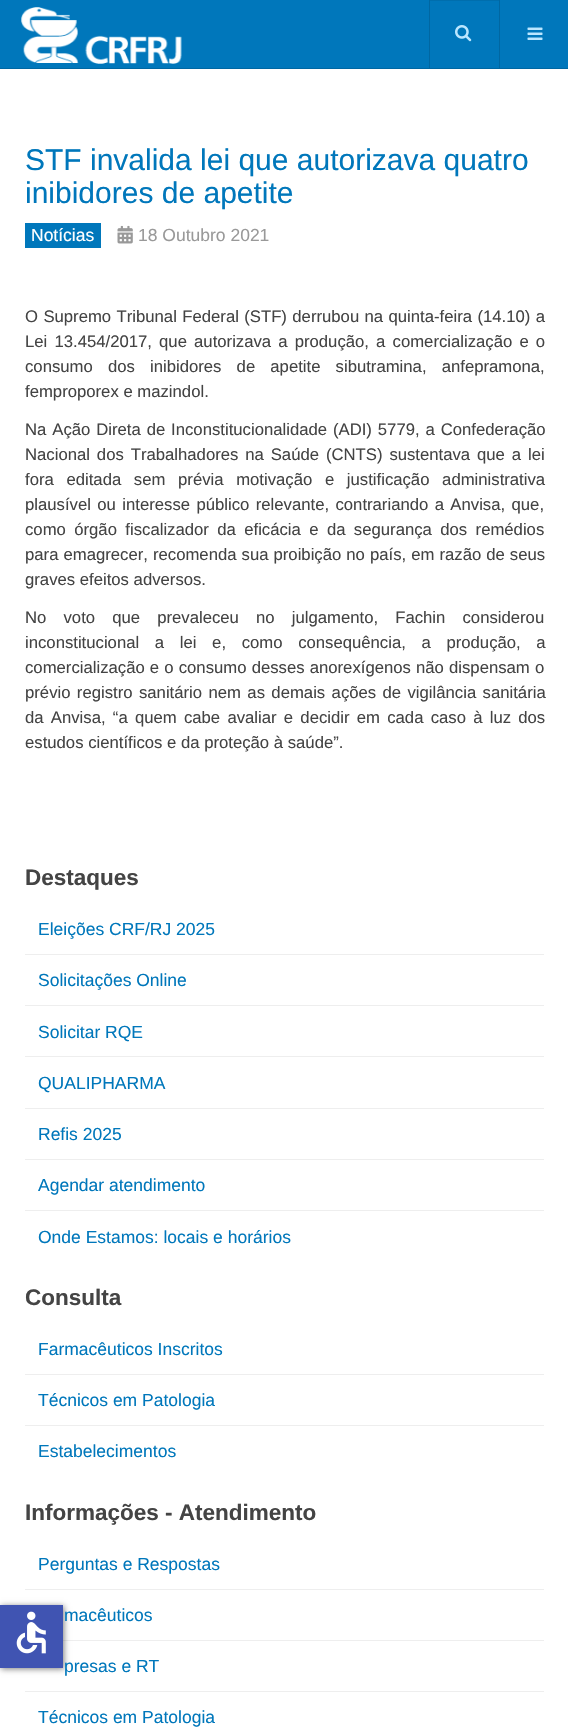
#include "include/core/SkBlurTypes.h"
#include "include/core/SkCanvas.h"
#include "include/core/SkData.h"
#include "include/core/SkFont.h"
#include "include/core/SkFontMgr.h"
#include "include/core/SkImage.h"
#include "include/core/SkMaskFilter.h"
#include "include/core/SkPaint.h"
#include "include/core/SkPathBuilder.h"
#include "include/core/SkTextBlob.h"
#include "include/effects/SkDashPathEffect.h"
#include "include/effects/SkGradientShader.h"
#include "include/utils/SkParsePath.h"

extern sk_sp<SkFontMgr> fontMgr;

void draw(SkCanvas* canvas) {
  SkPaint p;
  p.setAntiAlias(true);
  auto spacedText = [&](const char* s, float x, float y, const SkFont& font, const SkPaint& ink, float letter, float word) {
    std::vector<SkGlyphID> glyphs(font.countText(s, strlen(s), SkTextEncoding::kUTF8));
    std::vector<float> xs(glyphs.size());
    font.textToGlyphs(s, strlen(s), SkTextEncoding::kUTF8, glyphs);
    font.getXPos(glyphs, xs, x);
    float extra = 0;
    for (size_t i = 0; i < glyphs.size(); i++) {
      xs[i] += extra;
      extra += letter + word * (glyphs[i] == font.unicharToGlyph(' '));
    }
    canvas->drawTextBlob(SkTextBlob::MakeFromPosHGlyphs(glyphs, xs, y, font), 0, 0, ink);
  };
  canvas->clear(SK_ColorWHITE);
  p.setColor(SkColorSetRGB(0, 119, 187));
  canvas->drawRect(SkRect::MakeLTRB(0, 0, 568, 68), p);
  p.setColor(SkColorSetRGB(0, 103, 162));
  canvas->drawRect(SkRect::MakeLTRB(0, 68, 568, 69), p);
  canvas->drawImageRect(SkImages::DeferredFromEncodedData(SkData::MakeFromFileName("images/1.png")), SkRect::MakeLTRB(21, 7, 182, 64), SkSamplingOptions());
  canvas->drawRect(SkRect::MakeLTRB(499, 0, 500, 68), p);
  canvas->drawRect(SkRect::MakeLTRB(429, 0, 430, 68), p);
  p.setColor(SkColorSetRGB(0, 110, 173));
  canvas->drawRect(SkRect::MakeLTRB(430, 0, 499, 1), p);
  canvas->drawImageRect(SkImages::DeferredFromEncodedData(SkData::MakeFromFileName("images/2.png")), SkRect::MakeLTRB(455, 25, 472, 42), SkSamplingOptions());
  canvas->drawImageRect(SkImages::DeferredFromEncodedData(SkData::MakeFromFileName("images/3.png")), SkRect::MakeLTRB(527, 27, 543, 40), SkSamplingOptions());
  p.setColor(SkColorSetRGB(0, 119, 187));
  canvas->drawRect(SkRect::MakeLTRB(25, 223, 101, 248), p);
  canvas->drawImageRect(SkImages::DeferredFromEncodedData(SkData::MakeFromFileName("images/4.png")), SkRect::MakeLTRB(117, 225, 133, 244), SkSamplingOptions());
  p.setColor(SkColorSetRGB(238, 238, 238));
  canvas->drawRect(SkRect::MakeLTRB(25, 954, 544, 955), p);
  canvas->drawRect(SkRect::MakeLTRB(25, 1005, 544, 1006), p);
  canvas->drawRect(SkRect::MakeLTRB(25, 1056, 544, 1057), p);
  canvas->drawRect(SkRect::MakeLTRB(25, 1108, 544, 1109), p);
  canvas->drawRect(SkRect::MakeLTRB(25, 1159, 544, 1160), p);
  canvas->drawRect(SkRect::MakeLTRB(25, 1210, 544, 1211), p);
  canvas->drawRect(SkRect::MakeLTRB(25, 1374, 544, 1375), p);
  canvas->drawRect(SkRect::MakeLTRB(25, 1425, 544, 1426), p);
  canvas->drawRect(SkRect::MakeLTRB(25, 1589, 544, 1590), p);
  canvas->drawRect(SkRect::MakeLTRB(63, 1640, 544, 1641), p);
  canvas->drawRect(SkRect::MakeLTRB(25, 1691, 544, 1692), p);
  p.setColor(SkColorSetARGB(128, 0, 0, 0));
  p.setMaskFilter(SkMaskFilter::MakeBlur(kNormal_SkBlurStyle, 3));
  canvas->drawRect(SkRect::MakeLTRB(1, 1606, 64, 1669), p);
  p.setMaskFilter(nullptr);
  p.setColor(SkColorSetRGB(64, 84, 178));
  canvas->drawRect(SkRect::MakeLTRB(0, 1605, 63, 1668), p);
  canvas->drawImageRect(SkImages::DeferredFromEncodedData(SkData::MakeFromFileName("images/5.png")), SkRect::MakeLTRB(16, 1611, 46, 1654), SkSamplingOptions());
  SkFont font1(fontMgr->matchFamilyStyle("Liberation Sans", SkFontStyle::Normal()), 30);
  font1.setSubpixel(true);
  p.setColor(SkColorSetRGB(0, 119, 187));
  canvas->drawString("STF invalida lei que autorizava quatro", 25, 170, font1, p);
  canvas->drawString("inibidores de apetite", 25, 203, font1, p);
  SkFont font2(fontMgr->matchFamilyStyle("Liberation Sans", SkFontStyle::Normal()), 17.5f);
  font2.setSubpixel(true);
  p.setColor(SK_ColorWHITE);
  canvas->drawString("Notícias", 31, 241, font2, p);
  p.setColor(SkColorSetRGB(153, 153, 153));
  canvas->drawString("18 Outubro 2021", 138, 241, font2, p);
  SkFont font3(fontMgr->matchFamilyStyle("Liberation Sans", SkFontStyle::Normal()), 16.7f);
  font3.setSubpixel(true);
  p.setColor(SkColorSetRGB(68, 68, 68));
  spacedText("O Supremo Tribunal Federal (STF) derrubou na quinta-feira (14.10) a", 25, 322, font3, p, 0, 0.75f);
  spacedText("Lei 13.454/2017, que autorizava a produção, a comercialização e o", 25, 347, font3, p, 0, 2.5f);
  spacedText("consumo dos inibidores de apetite sibutramina, anfepramona,", 25, 372, font3, p, 0, 10.5f);
  canvas->drawString("femproporex e mazindol.", 25, 397, font3, p);
  spacedText("Na Ação Direta de Inconstitucionalidade (ADI) 5779, a Confederação", 25, 435, font3, p, 0, 1.25f);
  spacedText("Nacional dos Trabalhadores na Saúde (CNTS) sustentava que a lei", 25, 460, font3, p, 0, 2.25f);
  spacedText("fora editada sem prévia motivação e justificação administrativa", 25, 485, font3, p, 0, 8);
  spacedText("plausível ou interesse público relevante, contrariando a Anvisa, que,", 25, 510, font3, p, 0, 1.75f);
  spacedText("como órgão fiscalizador da eficácia e da segurança dos remédios", 25, 535, font3, p, 0, 3.75f);
  spacedText("para emagrecer, recomenda sua proibição no país, em razão de seus", 25, 560, font3, p, 0, 0.4f);
  canvas->drawString("graves efeitos adversos.", 25, 585, font3, p);
  spacedText("No voto que prevaleceu no julgamento, Fachin considerou", 25, 623, font3, p, 0, 12.5f);
  spacedText("inconstitucional a lei e, como consequência, a produção, a", 25, 648, font3, p, 0, 11);
  spacedText("comercialização e o consumo desses anorexígenos não dispensam o", 25, 673, font3, p, 0, 0.5f);
  spacedText("prévio registro sanitário nem as demais ações de vigilância sanitária", 25, 698, font3, p, 0, 1.75f);
  spacedText("da Anvisa, “a quem cabe avaliar e decidir em cada caso à luz dos", 25, 723, font3, p, 0, 2.6f);
  canvas->drawString("estudos científicos e da proteção à saúde”.", 25, 748, font3, p);
  SkFont font4(fontMgr->matchFamilyStyle("Liberation Sans", SkFontStyle::Bold()), 22.5f);
  font4.setSubpixel(true);
  canvas->drawString("Destaques", 25, 885, font4, p);
  p.setColor(SkColorSetRGB(0, 119, 187));
  canvas->drawString("Eleições CRF/RJ 2025", 38, 935, font2, p);
  canvas->drawString("Solicitações Online", 38, 986, font2, p);
  canvas->drawString("Solicitar RQE", 38, 1038, font2, p);
  canvas->drawString("QUALIPHARMA", 38, 1089, font2, p);
  canvas->drawString("Refis 2025", 38, 1140, font2, p);
  canvas->drawString("Agendar atendimento", 38, 1191, font2, p);
  canvas->drawString("Onde Estamos: locais e horários", 38, 1243, font2, p);
  p.setColor(SkColorSetRGB(68, 68, 68));
  canvas->drawString("Consulta", 25, 1305, font4, p);
  p.setColor(SkColorSetRGB(0, 119, 187));
  canvas->drawString("Farmacêuticos Inscritos", 38, 1355, font2, p);
  canvas->drawString("Técnicos em Patologia", 38, 1406, font2, p);
  canvas->drawString("Estabelecimentos", 38, 1457, font2, p);
  p.setColor(SkColorSetRGB(68, 68, 68));
  canvas->drawString("Informações - Atendimento", 25, 1520, font4, p);
  p.setColor(SkColorSetRGB(0, 119, 187));
  canvas->drawString("Perguntas e Respostas", 38, 1570, font2, p);
  canvas->drawString("macêuticos", 64, 1621, font2, p);
  canvas->drawString("presas e RT", 64, 1672, font2, p);
  canvas->drawString("Técnicos em Patologia", 38, 1723, font2, p);
}
